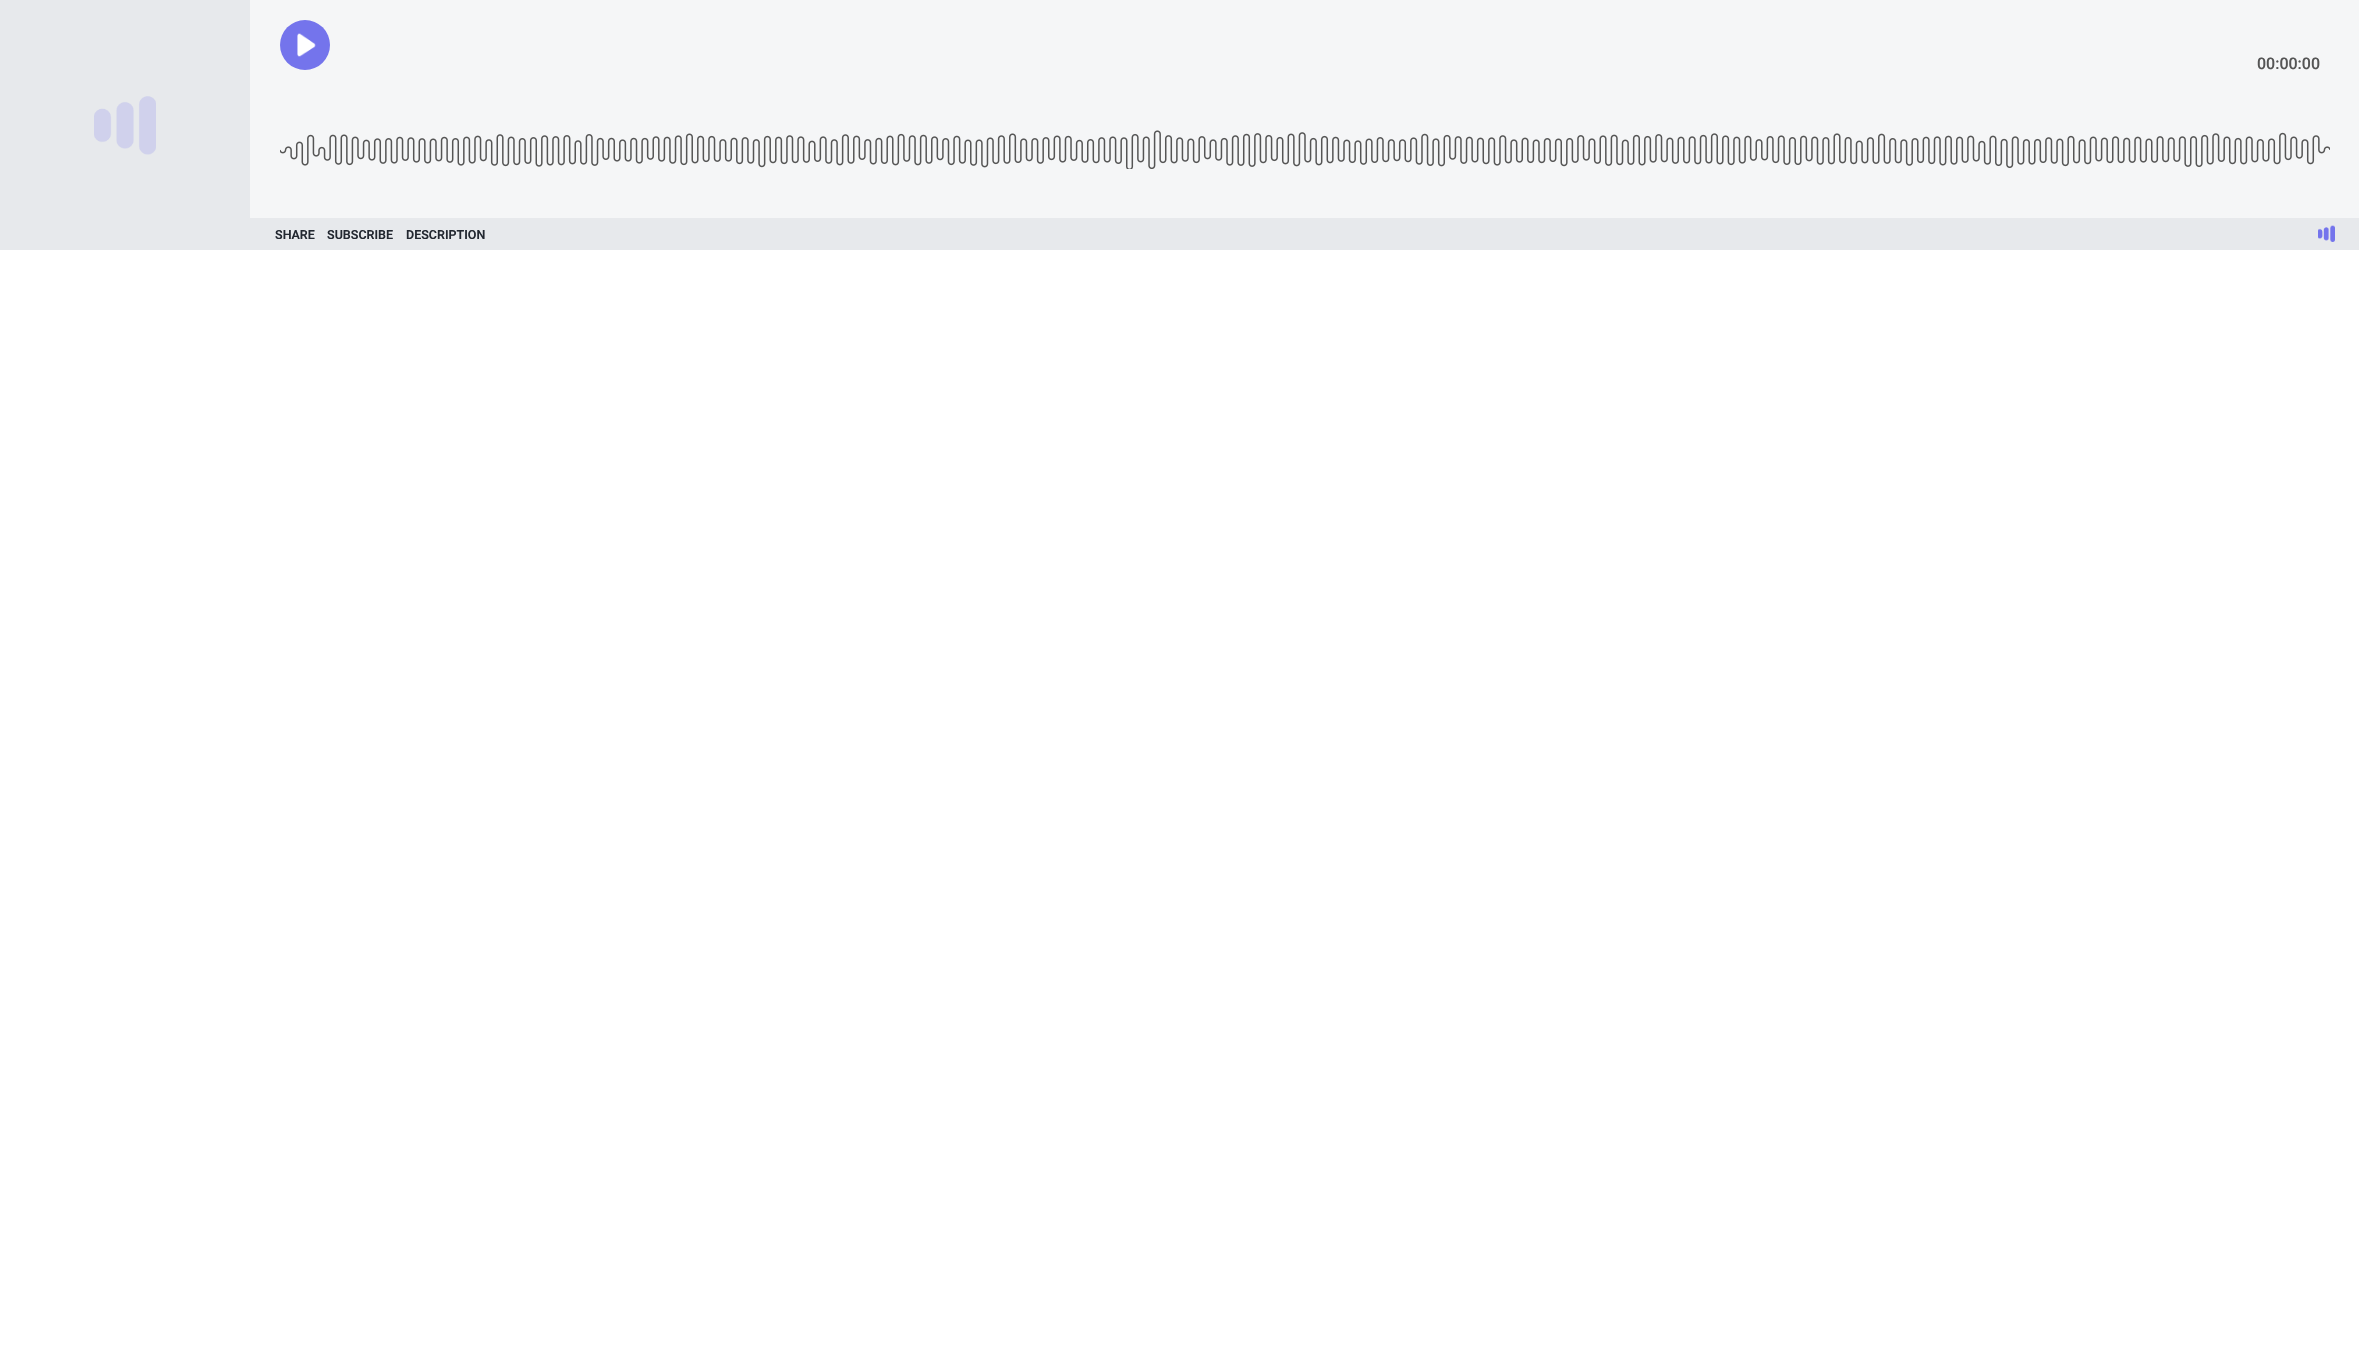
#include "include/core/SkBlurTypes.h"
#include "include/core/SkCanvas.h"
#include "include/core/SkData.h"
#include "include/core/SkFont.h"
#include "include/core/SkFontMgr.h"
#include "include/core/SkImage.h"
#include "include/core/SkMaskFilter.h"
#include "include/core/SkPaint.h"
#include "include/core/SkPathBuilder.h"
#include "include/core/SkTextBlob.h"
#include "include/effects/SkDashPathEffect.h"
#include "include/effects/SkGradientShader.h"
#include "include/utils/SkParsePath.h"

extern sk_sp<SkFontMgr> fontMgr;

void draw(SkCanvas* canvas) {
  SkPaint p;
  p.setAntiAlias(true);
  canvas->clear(SK_ColorWHITE);
  p.setColor(SkColorSetRGB(231, 233, 236));
  canvas->drawRect(SkRect::MakeLTRB(0, 0, 250, 250), p);
  canvas->drawImageRect(SkImages::DeferredFromEncodedData(SkData::MakeFromFileName("images/1.png")), SkRect::MakeLTRB(94, 96, 156, 155), SkSamplingOptions());
  p.setColor(SkColorSetRGB(245, 246, 247));
  canvas->drawRect(SkRect::MakeLTRB(250, 0, 2359, 218), p);
  p.setColor(SkColorSetRGB(116, 116, 236));
  canvas->drawCircle(305, 45, 25, p);
  canvas->drawImageRect(SkImages::DeferredFromEncodedData(SkData::MakeFromFileName("images/2.png")), SkRect::MakeLTRB(297, 33, 316, 57), SkSamplingOptions());
  canvas->drawImageRect(SkImages::DeferredFromEncodedData(SkData::MakeFromFileName("images/3.png")), SkRect::MakeLTRB(280, 130, 2330, 169), SkSamplingOptions());
  p.setColor(SkColorSetRGB(231, 233, 236));
  canvas->drawRect(SkRect::MakeLTRB(250, 218, 2359, 250), p);
  canvas->drawImageRect(SkImages::DeferredFromEncodedData(SkData::MakeFromFileName("images/4.png")), SkRect::MakeLTRB(2318, 225, 2335, 242), SkSamplingOptions());
  SkFont font1(fontMgr->matchFamilyStyle("Roboto", SkFontStyle(500, SkFontStyle::kNormal_Width, SkFontStyle::kUpright_Slant)), 16);
  font1.setSubpixel(true);
  p.setColor(SkColorSetRGB(85, 85, 85));
  canvas->drawString("00:00:00", 2257, 69, font1, p);
  SkFont font2(fontMgr->matchFamilyStyle("Roboto", SkFontStyle(600, SkFontStyle::kNormal_Width, SkFontStyle::kUpright_Slant)), 12.5f);
  font2.setSubpixel(true);
  p.setColor(SkColorSetRGB(35, 40, 49));
  canvas->drawString("SHARE", 275, 239, font2, p);
  canvas->drawString("SUBSCRIBE", 327, 239, font2, p);
  canvas->drawString("DESCRIPTION", 406, 239, font2, p);
}
